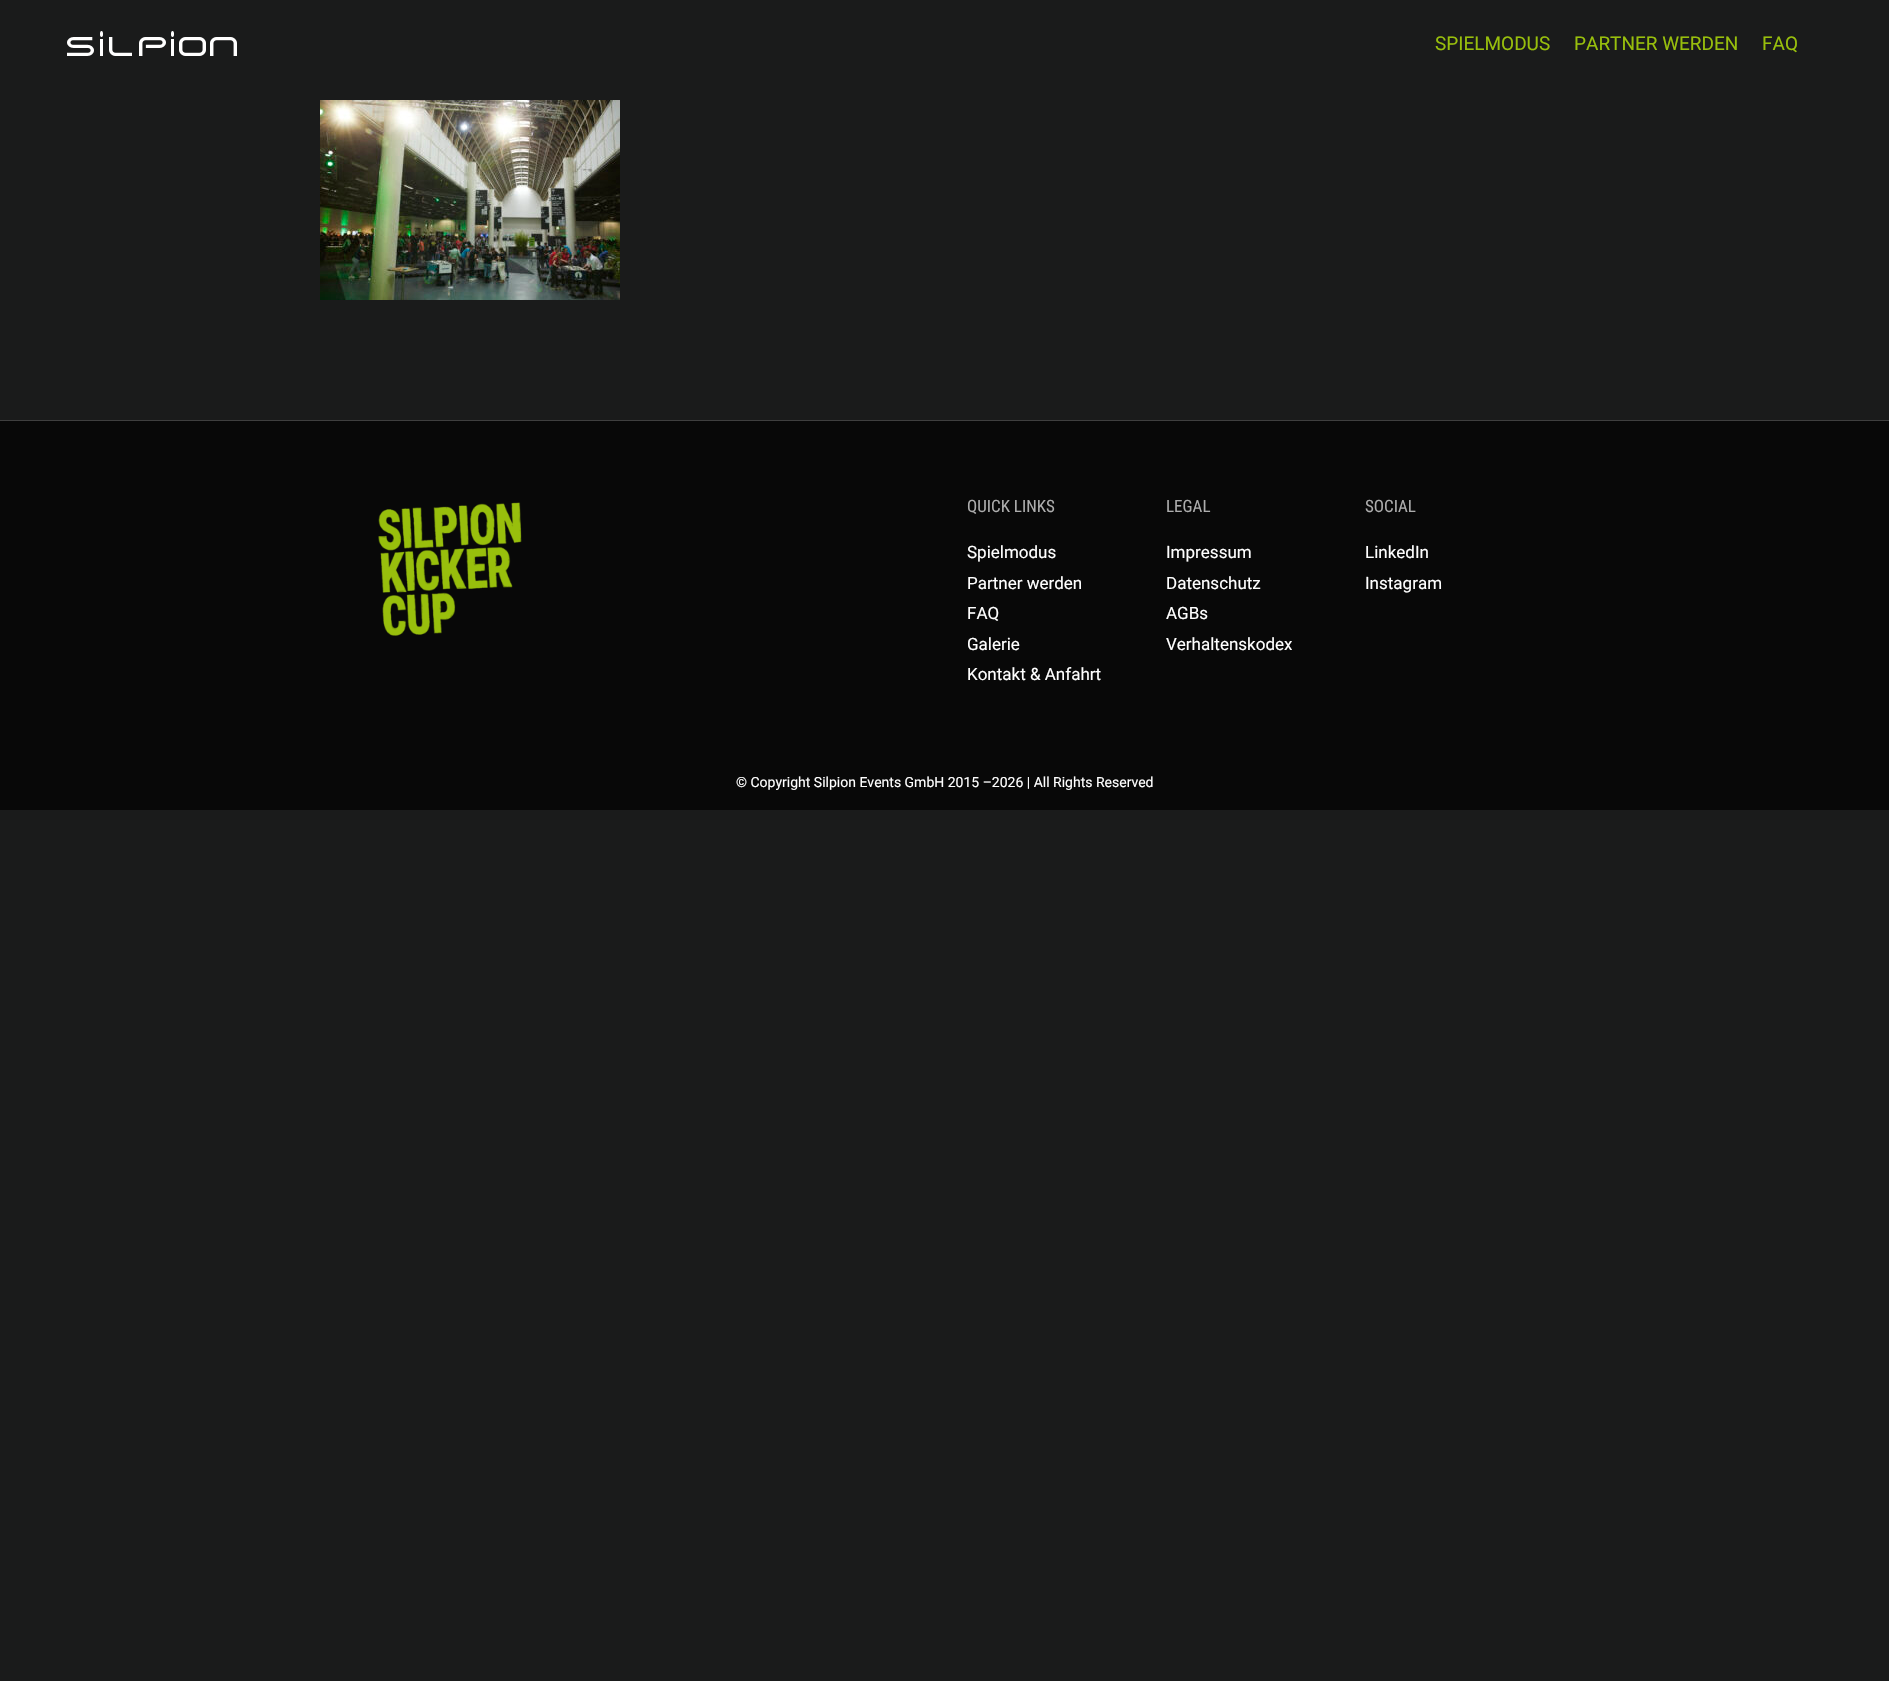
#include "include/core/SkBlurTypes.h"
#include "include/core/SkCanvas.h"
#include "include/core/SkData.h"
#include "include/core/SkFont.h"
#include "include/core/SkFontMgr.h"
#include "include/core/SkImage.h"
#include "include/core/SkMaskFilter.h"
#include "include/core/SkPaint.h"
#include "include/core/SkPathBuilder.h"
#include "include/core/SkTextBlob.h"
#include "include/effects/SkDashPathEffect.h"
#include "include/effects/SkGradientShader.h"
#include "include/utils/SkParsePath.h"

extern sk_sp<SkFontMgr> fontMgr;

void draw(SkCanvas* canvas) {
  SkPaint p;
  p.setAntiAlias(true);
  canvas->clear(SkColorSetRGB(26, 27, 27));
  canvas->drawImageRect(SkImages::DeferredFromEncodedData(SkData::MakeFromFileName("images/1.png")), SkRect::MakeLTRB(67, 31, 237, 56), SkSamplingOptions());
  canvas->drawImageRect(SkImages::DeferredFromEncodedData(SkData::MakeFromFileName("images/2.png")), SkRect::MakeLTRB(320, 100, 620, 300), SkSamplingOptions());
  p.setColor(SkColorSetRGB(8, 8, 8));
  canvas->drawRect(SkRect::MakeLTRB(0, 421, 1889, 810), p);
  p.setColor(SkColorSetRGB(63, 63, 63));
  canvas->drawRect(SkRect::MakeLTRB(0, 420, 1889, 421), p);
  canvas->drawImageRect(SkImages::DeferredFromEncodedData(SkData::MakeFromFileName("images/3.png")), SkRect::MakeLTRB(378, 502, 522, 636), SkSamplingOptions());
  SkFont font1(fontMgr->matchFamilyStyle("Roboto", SkFontStyle::Normal()), 19);
  font1.setSubpixel(true);
  p.setColor(SkColorSetRGB(152, 191, 12));
  canvas->drawString("SPIELMODUS", 1435, 50, font1, p);
  canvas->drawString("PARTNER WERDEN", 1574, 50, font1, p);
  canvas->drawString("FAQ", 1762, 50, font1, p);
  SkFont font2(fontMgr->matchFamilyStyle("Roboto Condensed", SkFontStyle::Normal()), 17);
  font2.setSubpixel(true);
  p.setColor(SkColorSetRGB(173, 173, 173));
  canvas->drawString("QUICK LINKS", 967, 512, font2, p);
  SkFont font3(fontMgr->matchFamilyStyle("Roboto", SkFontStyle::Normal()), 17);
  font3.setSubpixel(true);
  p.setColor(SK_ColorWHITE);
  canvas->drawString("Spielmodus", 967, 558, font3, p);
  canvas->drawString("Partner werden", 967, 589, font3, p);
  canvas->drawString("FAQ", 967, 619, font3, p);
  canvas->drawString("Galerie", 967, 650, font3, p);
  canvas->drawString("Kontakt & Anfahrt", 967, 680, font3, p);
  p.setColor(SkColorSetRGB(173, 173, 173));
  canvas->drawString("LEGAL", 1166, 512, font2, p);
  p.setColor(SK_ColorWHITE);
  canvas->drawString("Impressum", 1166, 558, font3, p);
  canvas->drawString("Datenschutz", 1166, 589, font3, p);
  canvas->drawString("AGBs", 1166, 619, font3, p);
  canvas->drawString("Verhaltenskodex", 1166, 650, font3, p);
  p.setColor(SkColorSetRGB(173, 173, 173));
  canvas->drawString("SOCIAL", 1365, 512, font2, p);
  p.setColor(SK_ColorWHITE);
  canvas->drawString("LinkedIn", 1365, 558, font3, p);
  canvas->drawString("Instagram", 1365, 589, font3, p);
  SkFont font4(fontMgr->matchFamilyStyle("Roboto", SkFontStyle::Normal()), 14);
  font4.setSubpixel(true);
  canvas->drawString("© Copyright Silpion Events GmbH 2015 –2026 | All Rights Reserved", 736, 787, font4, p);
}
